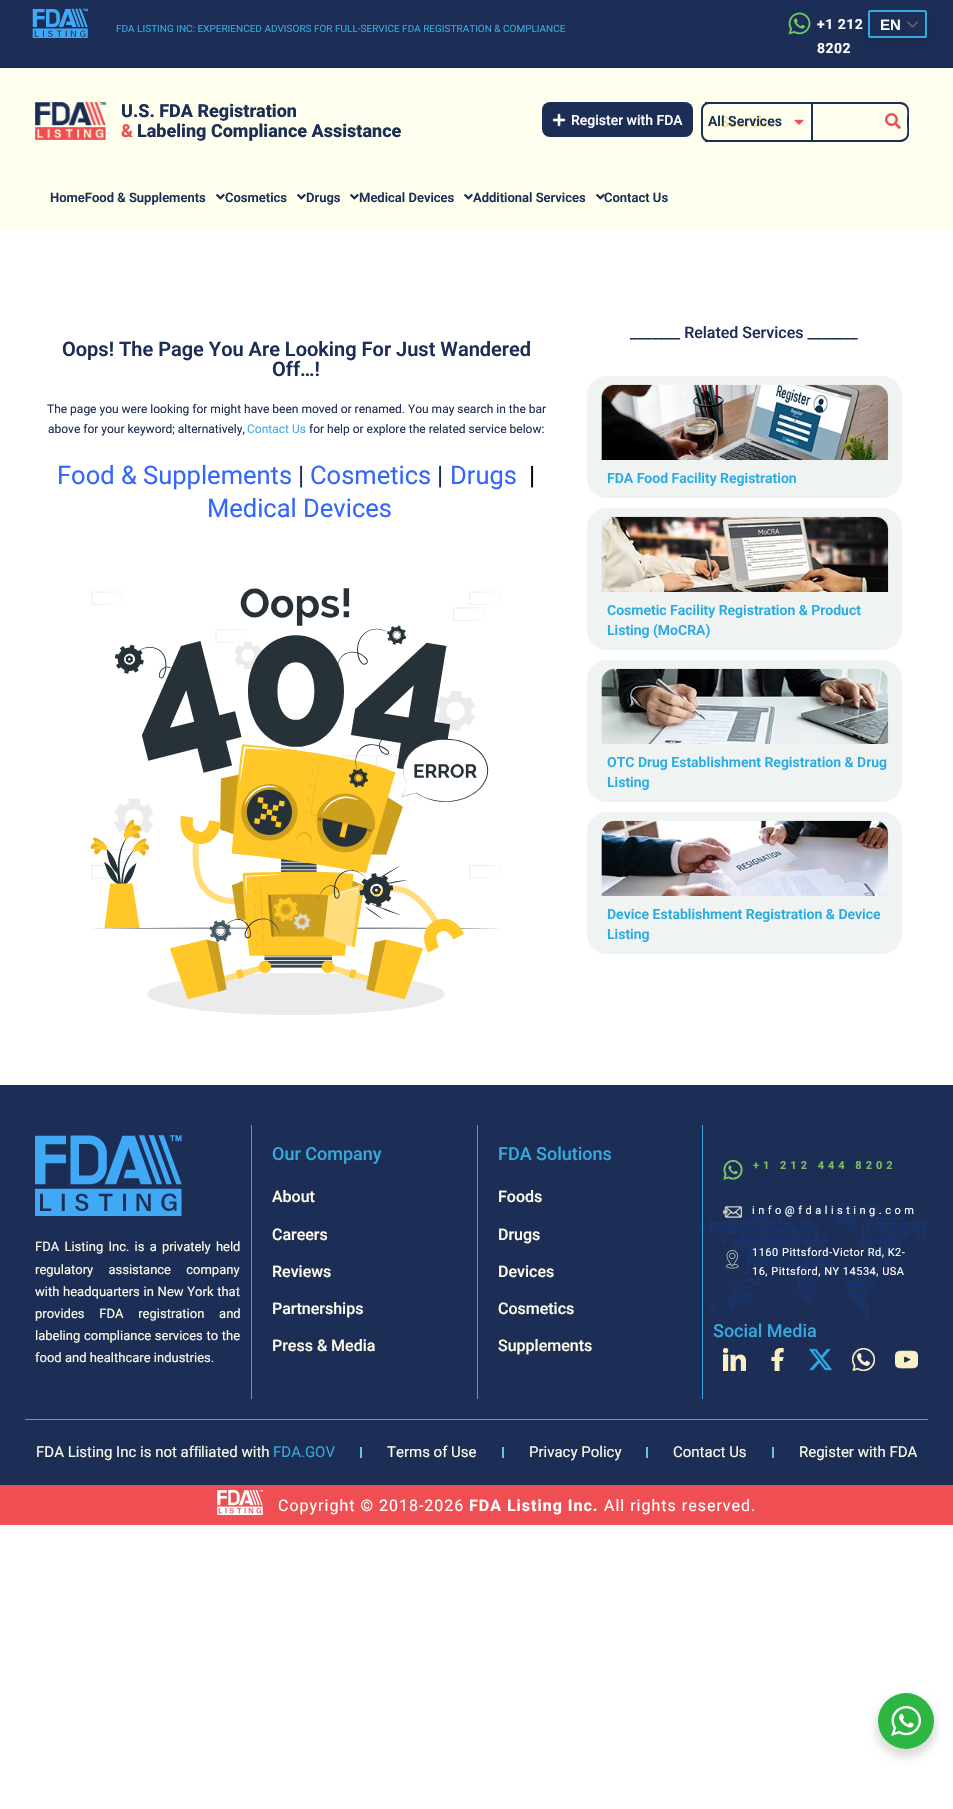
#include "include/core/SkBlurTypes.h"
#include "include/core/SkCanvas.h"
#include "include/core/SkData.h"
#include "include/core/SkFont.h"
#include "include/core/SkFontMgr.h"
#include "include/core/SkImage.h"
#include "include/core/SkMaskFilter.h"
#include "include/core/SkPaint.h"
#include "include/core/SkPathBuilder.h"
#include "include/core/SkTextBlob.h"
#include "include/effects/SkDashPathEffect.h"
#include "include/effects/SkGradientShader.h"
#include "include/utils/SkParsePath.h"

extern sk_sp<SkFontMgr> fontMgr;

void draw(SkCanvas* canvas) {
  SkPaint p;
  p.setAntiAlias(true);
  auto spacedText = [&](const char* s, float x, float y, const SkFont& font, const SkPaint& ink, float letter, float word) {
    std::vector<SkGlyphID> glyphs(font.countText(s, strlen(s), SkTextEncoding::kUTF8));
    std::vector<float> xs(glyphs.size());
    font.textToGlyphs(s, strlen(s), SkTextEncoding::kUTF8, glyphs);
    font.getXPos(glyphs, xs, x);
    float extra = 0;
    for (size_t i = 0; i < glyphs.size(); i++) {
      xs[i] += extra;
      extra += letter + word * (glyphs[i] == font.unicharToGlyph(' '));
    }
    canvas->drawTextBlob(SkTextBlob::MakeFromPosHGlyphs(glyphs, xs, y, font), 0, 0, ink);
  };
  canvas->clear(SK_ColorWHITE);
  p.setColor(SkColorSetRGB(28, 46, 86));
  canvas->drawRect(SkRect::MakeLTRB(0, 0, 953, 68), p);
  canvas->drawImageRect(SkImages::DeferredFromEncodedData(SkData::MakeFromFileName("images/1.png")), SkRect::MakeLTRB(32, 8, 88, 38), SkSamplingOptions());
  canvas->drawImageRect(SkImages::DeferredFromEncodedData(SkData::MakeFromFileName("images/2.png")), SkRect::MakeLTRB(788, 12, 811, 35), SkSamplingOptions());
  p.setColor(SkColorSetARGB(38, 0, 0, 0));
  p.setMaskFilter(SkMaskFilter::MakeBlur(kNormal_SkBlurStyle, 7.5f));
  canvas->drawRoundRect(SkRect::MakeLTRB(868, 15, 927, 43), 2, 2, p);
  p.setMaskFilter(nullptr);
  p.setColor(SkColorSetRGB(28, 46, 86));
  canvas->drawRoundRect(SkRect::MakeLTRB(868, 10, 927, 38), 2, 2, p);
  p.setColor(SkColorSetRGB(55, 169, 221));
  canvas->drawPath(SkPathBuilder(SkPathFillType::kEvenOdd).moveTo(870, 10).cubicTo(869, 10, 868, 11, 868, 12).lineTo(868, 36).cubicTo(868, 37, 869, 38, 870, 38).lineTo(925, 38).cubicTo(926, 38, 927, 37, 927, 36).lineTo(927, 12).cubicTo(927, 11, 926, 10, 925, 10).close().moveTo(870, 12).lineTo(870, 36).lineTo(925, 36).lineTo(925, 12).close().detach(), p);
  canvas->drawImageRect(SkImages::DeferredFromEncodedData(SkData::MakeFromFileName("images/3.png")), SkRect::MakeLTRB(907, 21, 918, 28), SkSamplingOptions());
  p.setColor(SkColorSetRGB(255, 255, 237));
  canvas->drawRect(SkRect::MakeLTRB(0, 68, 953, 229), p);
  canvas->drawImageRect(SkImages::DeferredFromEncodedData(SkData::MakeFromFileName("images/4.png")), SkRect::MakeLTRB(35, 102, 106, 140), SkSamplingOptions());
  p.setColor(SkColorSetRGB(28, 46, 86));
  canvas->drawRoundRect(SkRect::MakeLTRB(542, 102, 693, 137), 8, 8, p);
  canvas->drawImageRect(SkImages::DeferredFromEncodedData(SkData::MakeFromFileName("images/5.png")), SkRect::MakeLTRB(552, 113, 566, 127), SkSamplingOptions());
  canvas->drawRect(SkRect::MakeLTRB(705, 102, 879, 104), p);
  canvas->drawRect(SkRect::MakeLTRB(705, 140, 879, 142), p);
  p.setStyle(SkPaint::kStroke_Style);
  p.setStrokeWidth(2);
  canvas->drawPath(SkPathBuilder().moveTo(709, 103).lineTo(812, 103).lineTo(812, 141).lineTo(709, 141).cubicTo(705, 141, 702, 138, 702, 134).lineTo(702, 110).cubicTo(702, 106, 705, 103, 709, 103).close().detach(), p);
  canvas->drawImageRect(SkImages::DeferredFromEncodedData(SkData::MakeFromFileName("images/6.png")), SkRect::MakeLTRB(794, 119, 804, 125), SkSamplingOptions());
  p.setStyle(SkPaint::kFill_Style);
  canvas->drawPath(SkPathBuilder(SkPathFillType::kEvenOdd).moveTo(879, 102).lineTo(901, 102).cubicTo(905, 102, 909, 106, 909, 110).lineTo(909, 134).cubicTo(909, 138, 905, 142, 901, 142).lineTo(879, 142).close().moveTo(879, 104).lineTo(897, 104).cubicTo(910, 104, 907, 111, 907, 122).cubicTo(907, 133, 910, 140, 897, 140).lineTo(879, 140).close().detach(), p);
  canvas->drawImageRect(SkImages::DeferredFromEncodedData(SkData::MakeFromFileName("images/7.png")), SkRect::MakeLTRB(885, 113, 901, 129), SkSamplingOptions());
  canvas->drawImageRect(SkImages::DeferredFromEncodedData(SkData::MakeFromFileName("images/8.png")), SkRect::MakeLTRB(216, 194, 225, 200), SkSamplingOptions());
  canvas->drawImageRect(SkImages::DeferredFromEncodedData(SkData::MakeFromFileName("images/8.png")), SkRect::MakeLTRB(297, 194, 306, 200), SkSamplingOptions());
  canvas->drawImageRect(SkImages::DeferredFromEncodedData(SkData::MakeFromFileName("images/8.png")), SkRect::MakeLTRB(350, 194, 359, 200), SkSamplingOptions());
  canvas->drawImageRect(SkImages::DeferredFromEncodedData(SkData::MakeFromFileName("images/8.png")), SkRect::MakeLTRB(464, 194, 473, 200), SkSamplingOptions());
  canvas->drawImageRect(SkImages::DeferredFromEncodedData(SkData::MakeFromFileName("images/8.png")), SkRect::MakeLTRB(596, 194, 605, 200), SkSamplingOptions());
  canvas->drawImageRect(SkImages::DeferredFromEncodedData(SkData::MakeFromFileName("images/9.png")), SkRect::MakeLTRB(90, 588, 501, 1015), SkSamplingOptions());
  p.setColor(SkColorSetRGB(239, 244, 242));
  canvas->drawRoundRect(SkRect::MakeLTRB(587, 376, 902, 498), 20, 20, p);
  canvas->drawImageRect(SkImages::DeferredFromEncodedData(SkData::MakeFromFileName("images/10.png")), SkRect::MakeLTRB(601, 384, 889, 460), SkSamplingOptions());
  canvas->drawRoundRect(SkRect::MakeLTRB(587, 508, 902, 650), 20, 20, p);
  canvas->drawImageRect(SkImages::DeferredFromEncodedData(SkData::MakeFromFileName("images/11.png")), SkRect::MakeLTRB(601, 516, 889, 592), SkSamplingOptions());
  canvas->drawRoundRect(SkRect::MakeLTRB(587, 660, 902, 802), 20, 20, p);
  canvas->drawImageRect(SkImages::DeferredFromEncodedData(SkData::MakeFromFileName("images/12.png")), SkRect::MakeLTRB(601, 668, 889, 744), SkSamplingOptions());
  canvas->drawRoundRect(SkRect::MakeLTRB(587, 812, 902, 954), 20, 20, p);
  canvas->drawImageRect(SkImages::DeferredFromEncodedData(SkData::MakeFromFileName("images/13.png")), SkRect::MakeLTRB(601, 820, 889, 896), SkSamplingOptions());
  p.setColor(SkColorSetRGB(28, 46, 86));
  canvas->drawRect(SkRect::MakeLTRB(0, 1085, 953, 1485), p);
  canvas->drawImageRect(SkImages::DeferredFromEncodedData(SkData::MakeFromFileName("images/14.png")), SkRect::MakeLTRB(35, 1135, 182, 1216), SkSamplingOptions());
  p.setColor(SkColorSetRGB(55, 169, 221));
  canvas->drawRect(SkRect::MakeLTRB(251, 1125, 252, 1399), p);
  canvas->drawRect(SkRect::MakeLTRB(477, 1125, 478, 1399), p);
  canvas->drawImageRect(SkImages::DeferredFromEncodedData(SkData::MakeFromFileName("images/15.png")), SkRect::MakeLTRB(703, 1203, 928, 1322), SkSamplingOptions());
  canvas->drawRect(SkRect::MakeLTRB(702, 1125, 703, 1399), p);
  canvas->drawImageRect(SkImages::DeferredFromEncodedData(SkData::MakeFromFileName("images/16.png")), SkRect::MakeLTRB(723, 1160, 743, 1180), SkSamplingOptions());
  canvas->drawImageRect(SkImages::DeferredFromEncodedData(SkData::MakeFromFileName("images/17.png")), SkRect::MakeLTRB(723, 1206, 742, 1218), SkSamplingOptions());
  canvas->drawImageRect(SkImages::DeferredFromEncodedData(SkData::MakeFromFileName("images/18.png")), SkRect::MakeLTRB(726, 1250, 739, 1269), SkSamplingOptions());
  canvas->drawImageRect(SkImages::DeferredFromEncodedData(SkData::MakeFromFileName("images/19.png")), SkRect::MakeLTRB(723, 1348, 746, 1371), SkSamplingOptions());
  canvas->drawImageRect(SkImages::DeferredFromEncodedData(SkData::MakeFromFileName("images/20.png")), SkRect::MakeLTRB(771, 1348, 784, 1371), SkSamplingOptions());
  canvas->drawImageRect(SkImages::DeferredFromEncodedData(SkData::MakeFromFileName("images/21.png")), SkRect::MakeLTRB(809, 1348, 832, 1371), SkSamplingOptions());
  canvas->drawImageRect(SkImages::DeferredFromEncodedData(SkData::MakeFromFileName("images/22.png")), SkRect::MakeLTRB(852, 1348, 875, 1371), SkSamplingOptions());
  canvas->drawImageRect(SkImages::DeferredFromEncodedData(SkData::MakeFromFileName("images/23.png")), SkRect::MakeLTRB(895, 1350, 918, 1369), SkSamplingOptions());
  canvas->drawRect(SkRect::MakeLTRB(25, 1419, 928, 1420), p);
  p.setColor(SkColorSetRGB(110, 193, 228));
  canvas->drawRect(SkRect::MakeLTRB(360, 1447, 362, 1458), p);
  canvas->drawRect(SkRect::MakeLTRB(502, 1447, 504, 1458), p);
  canvas->drawRect(SkRect::MakeLTRB(646, 1447, 648, 1458), p);
  canvas->drawRect(SkRect::MakeLTRB(772, 1447, 774, 1458), p);
  p.setColor(SkColorSetRGB(239, 78, 82));
  canvas->drawRect(SkRect::MakeLTRB(0, 1485, 953, 1525), p);
  canvas->drawImageRect(SkImages::DeferredFromEncodedData(SkData::MakeFromFileName("images/24.png")), SkRect::MakeLTRB(217, 1490, 263, 1515), SkSamplingOptions());
  p.setColor(SkColorSetARGB(36, 0, 0, 0));
  p.setMaskFilter(SkMaskFilter::MakeBlur(kNormal_SkBlurStyle, 4));
  canvas->drawRoundRect(SkRect::MakeLTRB(876, 1697, 936, 1757), 30, 30, p);
  p.setMaskFilter(nullptr);
  p.setColor(SkColorSetRGB(45, 183, 66));
  canvas->drawCircle(906, 1721, 28, p);
  canvas->drawImageRect(SkImages::DeferredFromEncodedData(SkData::MakeFromFileName("images/25.png")), SkRect::MakeLTRB(891, 1706, 921, 1736), SkSamplingOptions());
  SkFont font1(fontMgr->matchFamilyStyle("Roboto", SkFontStyle::Normal()), 10);
  font1.setSubpixel(true);
  p.setColor(SkColorSetRGB(55, 169, 221));
  canvas->drawString("FDA LISTING INC: EXPERIENCED ADVISORS FOR FULL-SERVICE FDA REGISTRATION & COMPLIANCE", 116, 32, font1, p);
  SkFont font2(fontMgr->matchFamilyStyle("Roboto", SkFontStyle::Bold()), 14);
  font2.setSubpixel(true);
  p.setColor(SK_ColorWHITE);
  spacedText("+1 212", 817, 29, font2, p, 0.5f, 0);
  spacedText("8202", 817, 53, font2, p, 0.5f, 0);
  SkFont font3(fontMgr->matchFamilyStyle("Liberation Sans", SkFontStyle::Bold()), 15);
  font3.setSubpixel(true);
  canvas->drawString("EN", 880, 30, font3, p);
  SkFont font4(fontMgr->matchFamilyStyle("Roboto", SkFontStyle(800, SkFontStyle::kNormal_Width, SkFontStyle::kUpright_Slant)), 18);
  font4.setSubpixel(true);
  p.setColor(SkColorSetRGB(28, 46, 86));
  canvas->drawString("U.S. FDA Registration", 121, 117, font4, p);
  p.setColor(SkColorSetRGB(239, 78, 82));
  canvas->drawString("&", 121, 137, font4, p);
  p.setColor(SkColorSetRGB(28, 46, 86));
  canvas->drawString("Labeling Compliance Assistance", 137, 137, font4, p);
  SkFont font5(fontMgr->matchFamilyStyle("Roboto", SkFontStyle(500, SkFontStyle::kNormal_Width, SkFontStyle::kUpright_Slant)), 14);
  font5.setSubpixel(true);
  p.setColor(SK_ColorWHITE);
  canvas->drawString("Register with FDA", 571, 125, font5, p);
  SkFont font6(fontMgr->matchFamilyStyle("Roboto", SkFontStyle(500, SkFontStyle::kNormal_Width, SkFontStyle::kUpright_Slant)), 15);
  font6.setSubpixel(true);
  p.setColor(SkColorSetRGB(237, 222, 162));
  canvas->drawString("Search...", 720, 127, font6, p);
  SkFont font7(fontMgr->matchFamilyStyle("Roboto", SkFontStyle(600, SkFontStyle::kNormal_Width, SkFontStyle::kUpright_Slant)), 14);
  font7.setSubpixel(true);
  p.setColor(SkColorSetRGB(28, 46, 86));
  canvas->drawString("All Services", 708, 126, font7, p);
  SkFont font8(fontMgr->matchFamilyStyle("Roboto", SkFontStyle(600, SkFontStyle::kNormal_Width, SkFontStyle::kUpright_Slant)), 13);
  font8.setSubpixel(true);
  canvas->drawString("HomeFood & Supplements", 50, 202, font8, p);
  canvas->drawString("Cosmetics", 225, 202, font8, p);
  canvas->drawString("Drugs", 306, 202, font8, p);
  canvas->drawString("Medical Devices", 359, 202, font8, p);
  canvas->drawString("Additional Services", 473, 202, font8, p);
  canvas->drawString("Contact Us", 604, 202, font8, p);
  SkFont font9(fontMgr->matchFamilyStyle("Roboto", SkFontStyle(600, SkFontStyle::kNormal_Width, SkFontStyle::kUpright_Slant)), 20);
  font9.setSubpixel(true);
  canvas->drawString("Oops! The Page You Are Looking For Just Wandered", 62, 356, font9, p);
  canvas->drawString("Off…!", 272, 376, font9, p);
  SkFont font10(fontMgr->matchFamilyStyle("Roboto", SkFontStyle::Normal()), 12);
  font10.setSubpixel(true);
  canvas->drawString("The page you were looking for might have been moved or renamed. You may search in the bar", 47, 413, font10, p);
  canvas->drawString("above for your keyword; alternatively,", 48, 433, font10, p);
  p.setColor(SkColorSetRGB(63, 169, 245));
  canvas->drawString("Contact Us", 247, 433, font10, p);
  p.setColor(SkColorSetRGB(28, 46, 86));
  canvas->drawString("for help or explore the related service below:", 309, 433, font10, p);
  SkFont font11(fontMgr->matchFamilyStyle("Roboto", SkFontStyle::Normal()), 25.5f);
  font11.setSubpixel(true);
  p.setColor(SkColorSetRGB(51, 102, 255));
  canvas->drawString("Food & Supplements", 57, 484, font11, p);
  p.setColor(SkColorSetRGB(28, 46, 86));
  canvas->drawString("|", 298, 484, font11, p);
  p.setColor(SkColorSetRGB(51, 102, 255));
  canvas->drawString("Cosmetics", 310, 484, font11, p);
  p.setColor(SkColorSetRGB(28, 46, 86));
  canvas->drawString("|", 437, 484, font11, p);
  p.setColor(SkColorSetRGB(51, 102, 255));
  canvas->drawString("Drugs", 450, 484, font11, p);
  p.setColor(SK_ColorBLACK);
  canvas->drawString("|", 529, 484, font11, p);
  p.setColor(SkColorSetRGB(51, 102, 255));
  canvas->drawString("Medical Devices", 207, 517, font11, p);
  SkFont font12(fontMgr->matchFamilyStyle("Roboto", SkFontStyle(500, SkFontStyle::kNormal_Width, SkFontStyle::kUpright_Slant)), 16);
  font12.setSubpixel(true);
  p.setColor(SkColorSetRGB(28, 46, 86));
  canvas->drawString("_______ Related Services _______", 630, 338, font12, p);
  p.setColor(SkColorSetRGB(41, 171, 226));
  canvas->drawString("FDA Food Facility Registration", 607, 483, font7, p);
  canvas->drawString("Cosmetic Facility Registration & Product", 607, 615, font7, p);
  canvas->drawString("Listing (MoCRA)", 607, 635, font7, p);
  canvas->drawString("OTC Drug Establishment Registration & Drug", 607, 767, font7, p);
  canvas->drawString("Listing", 607, 787, font7, p);
  canvas->drawString("Device Establishment Registration & Device", 607, 919, font7, p);
  canvas->drawString("Listing", 607, 939, font7, p);
  SkFont font13(fontMgr->matchFamilyStyle("Roboto", SkFontStyle::Normal()), 13);
  font13.setSubpixel(true);
  p.setColor(SkColorSetRGB(255, 252, 233));
  spacedText("FDA Listing Inc. is a privately held", 35, 1251, font13, p, 0, 2);
  spacedText("regulatory assistance company", 35, 1274, font13, p, 0, 12);
  spacedText("with headquarters in New York that", 35, 1296, font13, p, 0, 0.5f);
  spacedText("provides FDA registration and", 35, 1318, font13, p, 0, 11.5f);
  spacedText("labeling compliance services to the", 35, 1340, font13, p, 0, 0.5f);
  canvas->drawString("food and healthcare industries.", 35, 1362, font13, p);
  SkFont font14(fontMgr->matchFamilyStyle("Roboto", SkFontStyle(500, SkFontStyle::kNormal_Width, SkFontStyle::kUpright_Slant)), 18);
  font14.setSubpixel(true);
  p.setColor(SkColorSetRGB(55, 169, 221));
  canvas->drawString("Our Company", 272, 1160, font14, p);
  p.setColor(SkColorSetRGB(255, 252, 233));
  canvas->drawString("About", 272, 1202, font12, p);
  canvas->drawString("Careers", 272, 1240, font12, p);
  canvas->drawString("Reviews", 272, 1277, font12, p);
  canvas->drawString("Partnerships", 272, 1314, font12, p);
  canvas->drawString("Press & Media", 272, 1351, font12, p);
  p.setColor(SkColorSetRGB(55, 169, 221));
  canvas->drawString("FDA Solutions", 498, 1160, font14, p);
  p.setColor(SkColorSetRGB(255, 252, 233));
  canvas->drawString("Foods", 498, 1202, font12, p);
  canvas->drawString("Drugs", 498, 1240, font12, p);
  canvas->drawString("Devices", 498, 1277, font12, p);
  canvas->drawString("Cosmetics", 498, 1314, font12, p);
  canvas->drawString("Supplements", 498, 1351, font12, p);
  SkFont font15(fontMgr->matchFamilyStyle("Roboto", SkFontStyle::Bold()), 11);
  font15.setSubpixel(true);
  p.setColor(SkColorSetRGB(124, 191, 98));
  spacedText("+1 212 444 8202", 753, 1169, font15, p, 4, 0);
  SkFont font16(fontMgr->matchFamilyStyle("Roboto", SkFontStyle::Normal()), 11);
  font16.setSubpixel(true);
  p.setColor(SK_ColorWHITE);
  spacedText("info@fdalisting.com", 752, 1214, font16, p, 3.5f, 0);
  spacedText("1160 Pittsford-Victor Rd, K2-", 752, 1256, font16, p, 0.5f, 0);
  spacedText("16, Pittsford, NY 14534, USA", 752, 1275, font16, p, 0.5f, 0);
  p.setColor(SkColorSetRGB(55, 169, 221));
  canvas->drawString("Social Media", 713, 1337, font14, p);
  SkFont font17(fontMgr->matchFamilyStyle("Roboto", SkFontStyle::Normal()), 15);
  font17.setSubpixel(true);
  p.setColor(SkColorSetRGB(255, 252, 233));
  canvas->drawString("FDA Listing Inc is not af", 36, 1457, font17, p);
  SkFont font18(fontMgr->matchFamilyStyle("Liberation Sans", SkFontStyle::Normal()), 15);
  font18.setSubpixel(true);
  canvas->drawString("ﬁ", 194, 1457, font18, p);
  canvas->drawString("liated with", 201, 1457, font17, p);
  p.setColor(SkColorSetRGB(55, 169, 221));
  canvas->drawString("FDA.GOV", 273, 1457, font17, p);
  p.setColor(SkColorSetRGB(255, 252, 233));
  canvas->drawString("Terms of Use", 387, 1457, font17, p);
  canvas->drawString("Privacy Policy", 529, 1457, font17, p);
  canvas->drawString("Contact Us", 673, 1457, font17, p);
  canvas->drawString("Register with FDA", 799, 1457, font17, p);
  SkFont font19(fontMgr->matchFamilyStyle("Roboto", SkFontStyle::Normal()), 16);
  font19.setSubpixel(true);
  p.setColor(SK_ColorWHITE);
  spacedText("Copyright © 2018-2026", 278, 1511, font19, p, 1, 0);
  SkFont font20(fontMgr->matchFamilyStyle("Roboto", SkFontStyle::Bold()), 16);
  font20.setSubpixel(true);
  spacedText("FDA Listing Inc.", 469, 1511, font20, p, 1, 0);
  spacedText("All rights reserved.", 604, 1511, font19, p, 1, 0);
}
